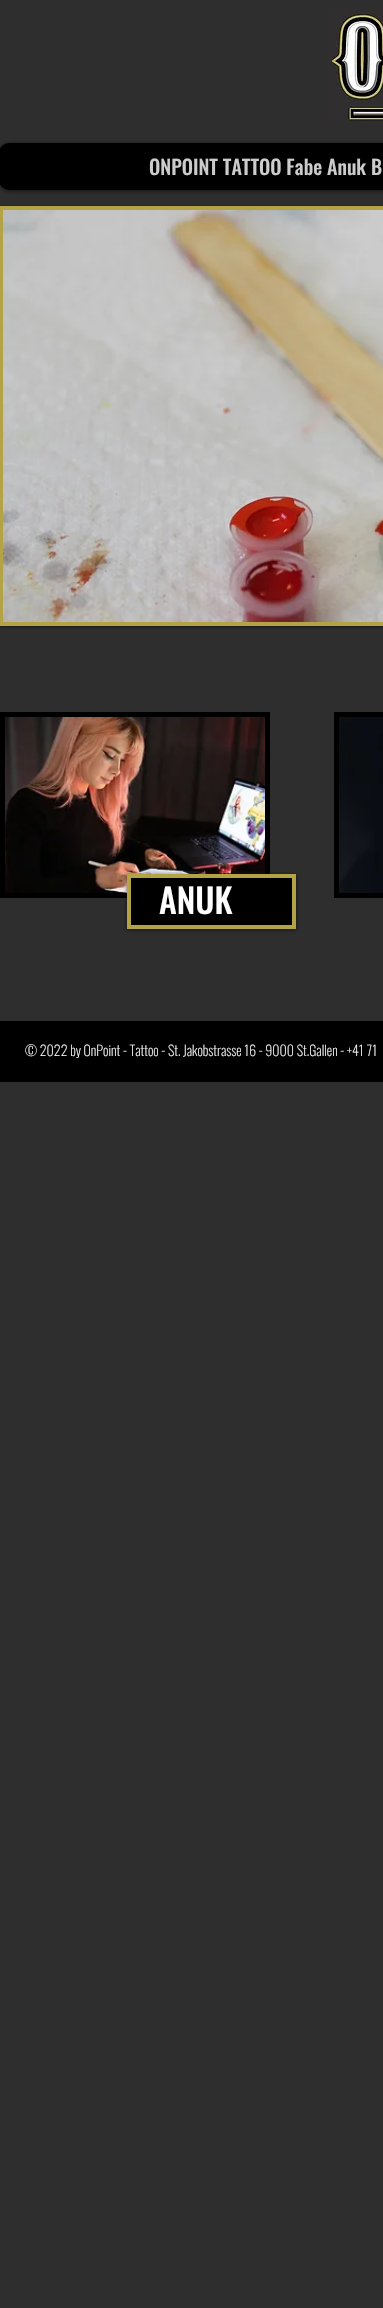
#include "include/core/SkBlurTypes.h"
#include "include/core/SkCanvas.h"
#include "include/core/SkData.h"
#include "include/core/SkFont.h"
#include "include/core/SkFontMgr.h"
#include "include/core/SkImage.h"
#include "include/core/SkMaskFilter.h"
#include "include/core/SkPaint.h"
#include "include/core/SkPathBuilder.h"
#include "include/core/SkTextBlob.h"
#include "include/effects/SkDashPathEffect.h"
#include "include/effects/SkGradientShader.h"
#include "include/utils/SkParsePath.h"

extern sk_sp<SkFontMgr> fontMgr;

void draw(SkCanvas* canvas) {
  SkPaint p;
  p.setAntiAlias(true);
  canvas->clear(SkColorSetRGB(47, 46, 46));
  canvas->drawImageRect(SkImages::DeferredFromEncodedData(SkData::MakeFromFileName("images/1.png")), SkRect::MakeLTRB(328, 9, 383, 121), SkSamplingOptions());
  p.setColor(SkColorSetARGB(153, 0, 0, 0));
  p.setMaskFilter(SkMaskFilter::MakeBlur(kNormal_SkBlurStyle, 2));
  canvas->drawRoundRect(SkRect::MakeLTRB(-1, 144, 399, 191), 10, 10, p);
  p.setMaskFilter(nullptr);
  p.setColor(SK_ColorBLACK);
  canvas->drawRoundRect(SkRect::MakeLTRB(-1, 143, 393, 190), 10, 10, p);
  p.setColor(SkColorSetARGB(128, 0, 0, 0));
  p.setMaskFilter(SkMaskFilter::MakeBlur(kNormal_SkBlurStyle, 1.5f));
  canvas->drawRect(SkRect::MakeLTRB(-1, 207, 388, 627), p);
  p.setMaskFilter(nullptr);
  p.setColor(SkColorSetRGB(180, 163, 68));
  canvas->drawRect(SkRect::MakeLTRB(0, 206, 383, 626), p);
  canvas->drawImageRect(SkImages::DeferredFromEncodedData(SkData::MakeFromFileName("images/2.png")), SkRect::MakeLTRB(3, 210, 383, 622), SkSamplingOptions());
  p.setColor(SK_ColorBLACK);
  canvas->drawRect(SkRect::MakeLTRB(0, 712, 270, 898), p);
  canvas->drawImageRect(SkImages::DeferredFromEncodedData(SkData::MakeFromFileName("images/3.png")), SkRect::MakeLTRB(5, 717, 265, 893), SkSamplingOptions());
  canvas->drawRect(SkRect::MakeLTRB(334, 712, 383, 898), p);
  canvas->drawImageRect(SkImages::DeferredFromEncodedData(SkData::MakeFromFileName("images/4.png")), SkRect::MakeLTRB(339, 717, 383, 893), SkSamplingOptions());
  p.setColor(SkColorSetARGB(153, 0, 0, 0));
  p.setMaskFilter(SkMaskFilter::MakeBlur(kNormal_SkBlurStyle, 2));
  canvas->drawRect(SkRect::MakeLTRB(127, 875, 296, 930), p);
  p.setMaskFilter(nullptr);
  p.setColor(SK_ColorBLACK);
  canvas->drawRect(SkRect::MakeLTRB(129, 876, 294, 927), p);
  p.setStyle(SkPaint::kStroke_Style);
  p.setStrokeWidth(4);
  p.setColor(SkColorSetRGB(180, 163, 68));
  canvas->drawRect(SkRect::MakeLTRB(129, 876, 294, 927), p);
  p.setStyle(SkPaint::kFill_Style);
  p.setColor(SK_ColorBLACK);
  canvas->drawRect(SkRect::MakeLTRB(0, 1021, 383, 1082), p);
  SkFont font1(fontMgr->matchFamilyStyle("Oswald", SkFontStyle(500, SkFontStyle::kNormal_Width, SkFontStyle::kUpright_Slant)), 20);
  font1.setSubpixel(true);
  p.setColor(SkColorSetRGB(204, 204, 204));
  canvas->drawString("ONPOINT TATTOO Fabe Anuk B", 149, 175, font1, p);
  SkFont font2(fontMgr->matchFamilyStyle("Oswald", SkFontStyle(500, SkFontStyle::kNormal_Width, SkFontStyle::kUpright_Slant)), 34);
  font2.setSubpixel(true);
  p.setColor(SK_ColorWHITE);
  canvas->drawString("ANUK", 159, 914, font2, p);
  SkFont font3(fontMgr->matchFamilyStyle("Oswald", SkFontStyle(200, SkFontStyle::kNormal_Width, SkFontStyle::kUpright_Slant)), 14);
  font3.setSubpixel(true);
  canvas->drawString("© 2022 by OnPoint - Tattoo - St. Jakobstrasse 16 - 9000 St.Gallen - +41 71", 25, 1056, font3, p);
}
